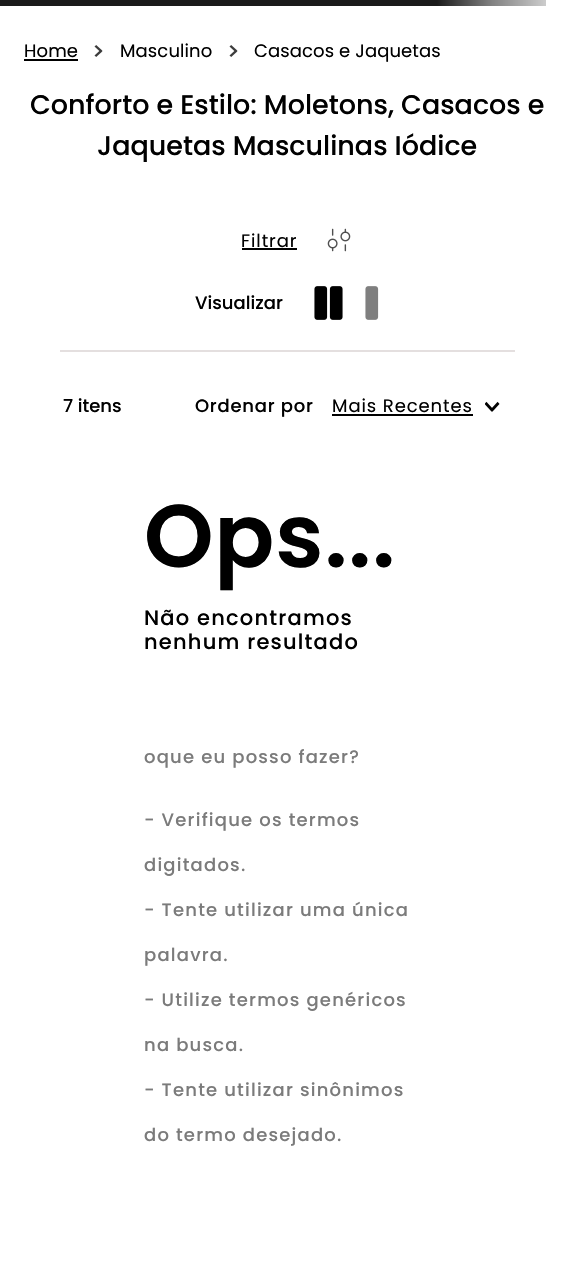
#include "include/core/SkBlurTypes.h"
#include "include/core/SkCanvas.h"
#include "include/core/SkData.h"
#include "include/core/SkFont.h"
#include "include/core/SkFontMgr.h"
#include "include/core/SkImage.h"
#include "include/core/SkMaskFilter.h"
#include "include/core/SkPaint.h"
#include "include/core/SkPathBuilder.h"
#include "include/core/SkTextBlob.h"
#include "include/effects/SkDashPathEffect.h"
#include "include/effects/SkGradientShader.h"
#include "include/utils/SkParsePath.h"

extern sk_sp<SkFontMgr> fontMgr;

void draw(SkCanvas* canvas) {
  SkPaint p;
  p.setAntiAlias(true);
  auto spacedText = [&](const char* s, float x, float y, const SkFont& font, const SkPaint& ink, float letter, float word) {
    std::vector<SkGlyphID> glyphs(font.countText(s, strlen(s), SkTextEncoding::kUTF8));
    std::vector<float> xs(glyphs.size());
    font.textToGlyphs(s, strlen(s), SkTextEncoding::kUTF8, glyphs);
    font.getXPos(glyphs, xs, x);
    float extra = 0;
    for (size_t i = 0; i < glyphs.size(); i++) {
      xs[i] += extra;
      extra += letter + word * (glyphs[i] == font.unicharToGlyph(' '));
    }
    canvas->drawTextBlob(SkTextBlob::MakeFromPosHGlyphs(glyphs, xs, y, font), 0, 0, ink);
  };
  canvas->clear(SK_ColorWHITE);
  {
    const SkColor colors[] = {SkColorSetRGB(26, 26, 26), SkColorSetRGB(128, 128, 128), SkColorSetRGB(204, 204, 204)};
    const float stops[] = {0.8f, 0.9f, 1};
    const SkPoint ends[] = {{0, 3}, {546, 3}};
    p.setShader(SkGradientShader::MakeLinear(ends, colors, stops, 3, SkTileMode::kClamp));
    p.setAlpha(255);
  }
  canvas->drawRect(SkRect::MakeLTRB(0, 0, 546, 6), p);
  p.setShader(nullptr);
  p.setColor(SK_ColorBLACK);
  canvas->drawRect(SkRect::MakeLTRB(24, 59, 78, 61), p);
  canvas->drawImageRect(SkImages::DeferredFromEncodedData(SkData::MakeFromFileName("images/1.png")), SkRect::MakeLTRB(94, 45, 103, 57), SkSamplingOptions());
  canvas->drawImageRect(SkImages::DeferredFromEncodedData(SkData::MakeFromFileName("images/1.png")), SkRect::MakeLTRB(229, 45, 238, 57), SkSamplingOptions());
  p.setColor(SkColorSetRGB(228, 223, 223));
  canvas->drawRect(SkRect::MakeLTRB(60, 350, 515, 352), p);
  p.setColor(SK_ColorBLACK);
  canvas->drawRect(SkRect::MakeLTRB(242, 248, 297, 250), p);
  canvas->drawImageRect(SkImages::DeferredFromEncodedData(SkData::MakeFromFileName("images/2.png")), SkRect::MakeLTRB(327, 228, 351, 252), SkSamplingOptions());
  canvas->drawImageRect(SkImages::DeferredFromEncodedData(SkData::MakeFromFileName("images/3.png")), SkRect::MakeLTRB(314, 286, 343, 320), SkSamplingOptions());
  canvas->drawImageRect(SkImages::DeferredFromEncodedData(SkData::MakeFromFileName("images/4.png")), SkRect::MakeLTRB(365, 286, 379, 320), SkSamplingOptions());
  canvas->drawRect(SkRect::MakeLTRB(332, 414, 473, 416), p);
  canvas->drawImageRect(SkImages::DeferredFromEncodedData(SkData::MakeFromFileName("images/5.png")), SkRect::MakeLTRB(485, 401, 500, 412), SkSamplingOptions());
  SkFont font1(fontMgr->matchFamilyStyle("Poppins", SkFontStyle::Normal()), 18);
  font1.setSubpixel(true);
  spacedText("Home", 24, 57, font1, p, 0.1f, 0);
  spacedText("Masculino", 120, 57, font1, p, 0.1f, 0);
  spacedText("Casacos e Jaquetas", 254, 57, font1, p, 0.1f, 0);
  SkFont font2(fontMgr->matchFamilyStyle("Poppins", SkFontStyle(500, SkFontStyle::kNormal_Width, SkFontStyle::kUpright_Slant)), 27);
  font2.setSubpixel(true);
  canvas->drawString("Conforto e Estilo: Moletons, Casacos e", 30, 114, font2, p);
  canvas->drawString("Jaquetas Masculinas Iódice", 97, 155, font2, p);
  spacedText("Filtrar", 241, 247, font1, p, 0.9f, 0);
  SkFont font3(fontMgr->matchFamilyStyle("Poppins", SkFontStyle(500, SkFontStyle::kNormal_Width, SkFontStyle::kUpright_Slant)), 18);
  font3.setSubpixel(true);
  canvas->drawString("Visualizar", 195, 309, font3, p);
  canvas->drawString("7 itens", 63, 412, font3, p);
  spacedText("Ordenar por", 195, 412, font3, p, 0.75f, 0);
  spacedText("Mais Recentes", 332, 412, font1, p, 0.9f, 0);
  SkFont font4(fontMgr->matchFamilyStyle("Poppins", SkFontStyle(600, SkFontStyle::kNormal_Width, SkFontStyle::kUpright_Slant)), 88.5f);
  font4.setSubpixel(true);
  spacedText("Ops...", 144, 567, font4, p, 0.9f, 0);
  SkFont font5(fontMgr->matchFamilyStyle("Poppins", SkFontStyle(500, SkFontStyle::kNormal_Width, SkFontStyle::kUpright_Slant)), 21);
  font5.setSubpixel(true);
  spacedText("Não encontramos", 144, 625, font5, p, 1.2f, 0);
  spacedText("nenhum resultado", 144, 649, font5, p, 1.2f, 0);
  p.setColor(SkColorSetRGB(123, 123, 123));
  spacedText("oque eu posso fazer?", 144, 763, font3, p, 1.2f, 0);
  spacedText("- Verifique os termos", 144, 826, font3, p, 1.2f, 0);
  spacedText("digitados.", 144, 871, font3, p, 1.2f, 0);
  spacedText("- Tente utilizar uma única", 144, 916, font3, p, 1.2f, 0);
  spacedText("palavra.", 144, 961, font3, p, 1.2f, 0);
  spacedText("- Utilize termos genéricos", 144, 1006, font3, p, 1.2f, 0);
  spacedText("na busca.", 144, 1051, font3, p, 1.2f, 0);
  spacedText("- Tente utilizar sinônimos", 144, 1096, font3, p, 1.2f, 0);
  spacedText("do termo desejado.", 144, 1141, font3, p, 1.2f, 0);
}
